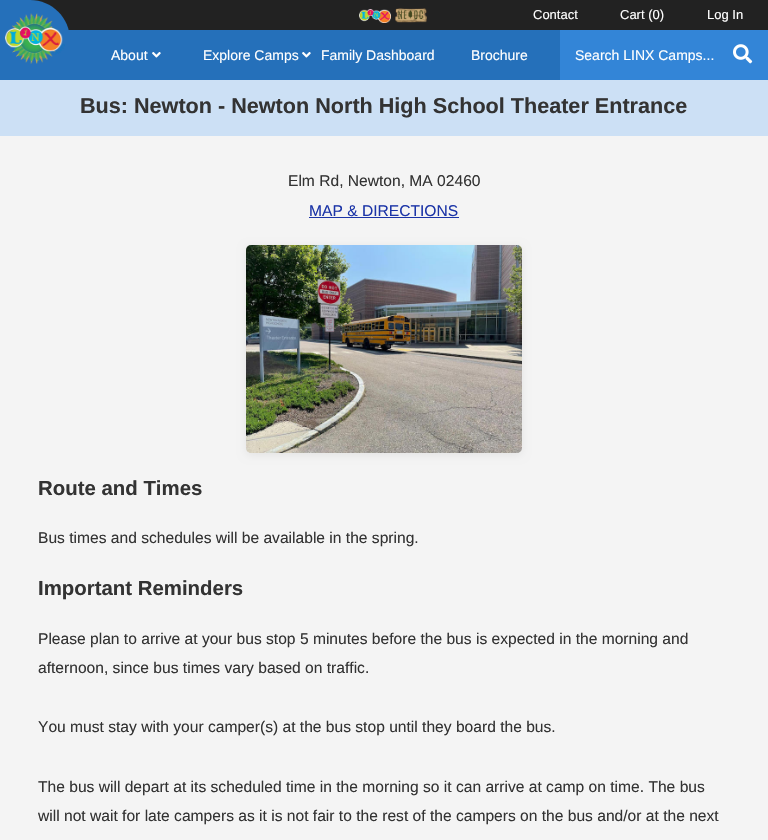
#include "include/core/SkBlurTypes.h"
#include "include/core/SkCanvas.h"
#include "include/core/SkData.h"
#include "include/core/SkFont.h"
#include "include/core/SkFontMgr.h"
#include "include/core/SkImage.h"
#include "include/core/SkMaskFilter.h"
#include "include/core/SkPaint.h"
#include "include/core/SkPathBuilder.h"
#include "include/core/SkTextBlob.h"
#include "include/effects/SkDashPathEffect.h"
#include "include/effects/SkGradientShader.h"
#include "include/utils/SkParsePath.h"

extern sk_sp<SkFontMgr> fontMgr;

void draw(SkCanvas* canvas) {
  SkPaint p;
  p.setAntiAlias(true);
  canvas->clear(SkColorSetRGB(244, 244, 244));
  p.setColor(SkColorSetRGB(34, 34, 34));
  canvas->drawRect(SkRect::MakeLTRB(30, 0, 768, 30), p);
  p.setColor(SkColorSetRGB(37, 112, 186));
  canvas->drawRect(SkRect::MakeLTRB(0, 30, 560, 80), p);
  canvas->drawPath(SkPathBuilder().moveTo(0, 0).lineTo(30, 0).cubicTo(52, 0, 70, 18, 70, 40).lineTo(70, 70).lineTo(0, 70).close().detach(), p);
  canvas->drawImageRect(SkImages::DeferredFromEncodedData(SkData::MakeFromFileName("images/1.png")), SkRect::MakeLTRB(5, 13, 65, 64), SkSamplingOptions());
  canvas->drawImageRect(SkImages::DeferredFromEncodedData(SkData::MakeFromFileName("images/2.png")), SkRect::MakeLTRB(359, 9, 391, 23), SkSamplingOptions());
  canvas->drawImageRect(SkImages::DeferredFromEncodedData(SkData::MakeFromFileName("images/3.png")), SkRect::MakeLTRB(395, 8, 427, 23), SkSamplingOptions());
  canvas->drawImageRect(SkImages::DeferredFromEncodedData(SkData::MakeFromFileName("images/4.png")), SkRect::MakeLTRB(152, 52, 161, 58), SkSamplingOptions());
  canvas->drawImageRect(SkImages::DeferredFromEncodedData(SkData::MakeFromFileName("images/4.png")), SkRect::MakeLTRB(302, 52, 311, 58), SkSamplingOptions());
  p.setColor(SkColorSetRGB(51, 133, 215));
  canvas->drawRect(SkRect::MakeLTRB(560, 30, 768, 80), p);
  canvas->drawImageRect(SkImages::DeferredFromEncodedData(SkData::MakeFromFileName("images/5.png")), SkRect::MakeLTRB(733, 44, 753, 64), SkSamplingOptions());
  p.setColor(SkColorSetRGB(204, 224, 245));
  canvas->drawRect(SkRect::MakeLTRB(0, 80, 768, 136), p);
  p.setColor(SkColorSetRGB(27, 52, 167));
  canvas->drawRect(SkRect::MakeLTRB(309, 217, 459, 218), p);
  p.setColor(SkColorSetRGB(227, 227, 227));
  p.setMaskFilter(SkMaskFilter::MakeBlur(kNormal_SkBlurStyle, 4));
  canvas->drawRoundRect(SkRect::MakeLTRB(246, 247, 522, 455), 5, 5, p);
  p.setMaskFilter(nullptr);
  canvas->drawImageRect(SkImages::DeferredFromEncodedData(SkData::MakeFromFileName("images/6.png")), SkRect::MakeLTRB(246, 245, 522, 453), SkSamplingOptions());
  SkFont font1(fontMgr->matchFamilyStyle("Liberation Sans", SkFontStyle::Normal()), 13);
  font1.setSubpixel(true);
  p.setColor(SK_ColorWHITE);
  canvas->drawString("Contact", 533, 19, font1, p);
  canvas->drawString("Cart (0)", 620, 19, font1, p);
  canvas->drawString("Log In", 707, 19, font1, p);
  SkFont font2(fontMgr->matchFamilyStyle("Liberation Sans", SkFontStyle::Normal()), 14);
  font2.setSubpixel(true);
  canvas->drawString("About", 111, 60, font2, p);
  canvas->drawString("Explore Camps", 203, 60, font2, p);
  canvas->drawString("Family Dashboard", 321, 60, font2, p);
  canvas->drawString("Brochure", 471, 60, font2, p);
  canvas->drawString("Search LINX Camps...", 575, 60, font2, p);
  SkFont font3(fontMgr->matchFamilyStyle("Liberation Sans", SkFontStyle::Bold()), 21.6f);
  font3.setSubpixel(true);
  p.setColor(SkColorSetRGB(51, 51, 51));
  canvas->drawString("Bus: Newton - Newton North High School Theater Entrance", 80, 113, font3, p);
  SkFont font4(fontMgr->matchFamilyStyle("Liberation Sans", SkFontStyle::Normal()), 15.6f);
  font4.setSubpixel(true);
  canvas->drawString("Elm Rd, Newton, MA 02460", 288, 186, font4, p);
  p.setColor(SkColorSetRGB(27, 52, 167));
  canvas->drawString("MAP & DIRECTIONS", 309, 216, font4, p);
  SkFont font5(fontMgr->matchFamilyStyle("Liberation Sans", SkFontStyle::Bold()), 20.4f);
  font5.setSubpixel(true);
  p.setColor(SkColorSetRGB(51, 51, 51));
  canvas->drawString("Route and Times", 38, 495, font5, p);
  canvas->drawString("Bus times and schedules will be available in the spring.", 38, 543, font4, p);
  canvas->drawString("Important Reminders", 38, 595, font5, p);
  canvas->drawString("Please plan to arrive at your bus stop 5 minutes before the bus is expected in the morning and", 38, 644, font4, p);
  canvas->drawString("afternoon, since bus times vary based on traffic.", 38, 673, font4, p);
  canvas->drawString("You must stay with your camper(s) at the bus stop until they board the bus.", 38, 732, font4, p);
  canvas->drawString("The bus will depart at its scheduled time in the morning so it can arrive at camp on time. The bus", 38, 792, font4, p);
  canvas->drawString("will not wait for late campers as it is not fair to the rest of the campers on the bus and/or at the next", 38, 821, font4, p);
}
